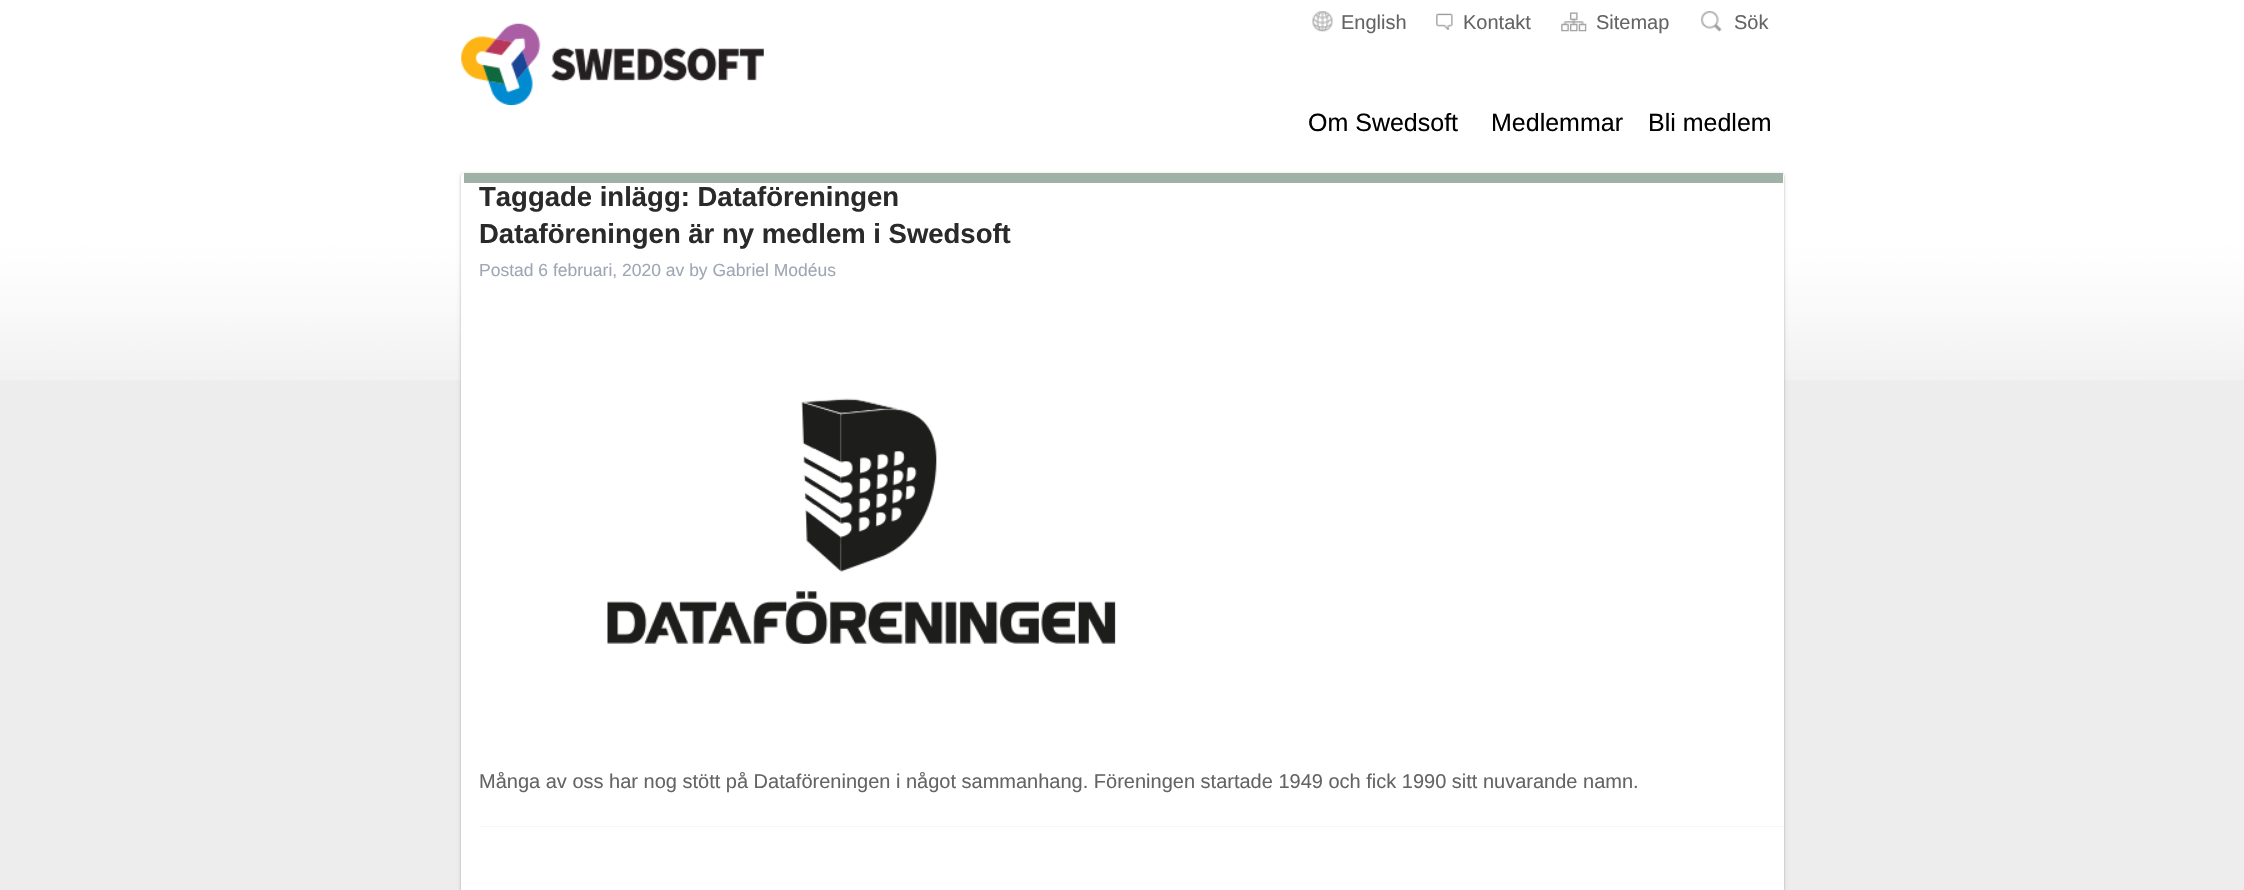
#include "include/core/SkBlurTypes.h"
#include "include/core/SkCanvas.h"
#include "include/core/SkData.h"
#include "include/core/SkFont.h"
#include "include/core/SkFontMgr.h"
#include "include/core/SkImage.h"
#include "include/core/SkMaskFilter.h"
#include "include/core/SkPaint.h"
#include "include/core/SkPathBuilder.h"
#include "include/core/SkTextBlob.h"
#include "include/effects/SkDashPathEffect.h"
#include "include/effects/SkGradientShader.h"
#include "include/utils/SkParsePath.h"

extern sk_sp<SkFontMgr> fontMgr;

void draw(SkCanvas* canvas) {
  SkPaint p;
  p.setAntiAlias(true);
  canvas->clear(SkColorSetRGB(238, 237, 237));
  canvas->drawImageRect(SkImages::DeferredFromEncodedData(SkData::MakeFromFileName("images/1.png")), SkRect::MakeLTRB(0, 0, 2244, 380), SkSamplingOptions());
  canvas->drawImageRect(SkImages::DeferredFromEncodedData(SkData::MakeFromFileName("images/2.png")), SkRect::MakeLTRB(461, 23, 764, 105), SkSamplingOptions());
  canvas->drawImageRect(SkImages::DeferredFromEncodedData(SkData::MakeFromFileName("images/3.png")), SkRect::MakeLTRB(1312, 11, 1333, 32), SkSamplingOptions());
  canvas->drawImageRect(SkImages::DeferredFromEncodedData(SkData::MakeFromFileName("images/4.png")), SkRect::MakeLTRB(1436, 13, 1453, 30), SkSamplingOptions());
  canvas->drawImageRect(SkImages::DeferredFromEncodedData(SkData::MakeFromFileName("images/5.png")), SkRect::MakeLTRB(1561, 12, 1587, 32), SkSamplingOptions());
  canvas->drawImageRect(SkImages::DeferredFromEncodedData(SkData::MakeFromFileName("images/6.png")), SkRect::MakeLTRB(1701, 11, 1722, 32), SkSamplingOptions());
  p.setColor(SkColorSetARGB(61, 2, 0, 0));
  p.setMaskFilter(SkMaskFilter::MakeBlur(kNormal_SkBlurStyle, 1));
  canvas->drawRoundRect(SkRect::MakeLTRB(461, 174, 1784, 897), 4, 4, p);
  p.setMaskFilter(nullptr);
  p.setColor(SkColorSetARGB(31, 2, 0, 0));
  p.setMaskFilter(SkMaskFilter::MakeBlur(kNormal_SkBlurStyle, 2));
  canvas->drawRoundRect(SkRect::MakeLTRB(461, 174, 1784, 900), 4, 4, p);
  p.setMaskFilter(nullptr);
  p.setColor(SK_ColorWHITE);
  canvas->drawRoundRect(SkRect::MakeLTRB(461, 173, 1784, 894), 4, 4, p);
  p.setColor(SkColorSetRGB(160, 178, 168));
  canvas->drawRect(SkRect::MakeLTRB(464, 173, 1783, 183), p);
  canvas->drawImageRect(SkImages::DeferredFromEncodedData(SkData::MakeFromFileName("images/7.png")), SkRect::MakeLTRB(607, 398, 1116, 644), SkSamplingOptions());
  p.setColor(SkColorSetRGB(245, 248, 250));
  canvas->drawRect(SkRect::MakeLTRB(479, 826, 1784, 827), p);
  SkFont font1(fontMgr->matchFamilyStyle("Liberation Sans", SkFontStyle::Normal()), 20);
  font1.setSubpixel(true);
  p.setColor(SkColorSetRGB(100, 100, 100));
  canvas->drawString("English", 1341, 29, font1, p);
  canvas->drawString("Kontakt", 1463, 29, font1, p);
  canvas->drawString("Sitemap", 1596, 29, font1, p);
  canvas->drawString("Sök", 1734, 29, font1, p);
  SkFont font2(fontMgr->matchFamilyStyle("Liberation Sans", SkFontStyle::Normal()), 25);
  font2.setSubpixel(true);
  p.setColor(SK_ColorBLACK);
  canvas->drawString("Om Swedsoft", 1308, 131, font2, p);
  canvas->drawString("Medlemmar", 1491, 131, font2, p);
  canvas->drawString("Bli medlem", 1648, 131, font2, p);
  SkFont font3(fontMgr->matchFamilyStyle("Liberation Sans", SkFontStyle::Bold()), 27.5f);
  font3.setSubpixel(true);
  p.setColor(SkColorSetRGB(42, 42, 42));
  canvas->drawString("Taggade inlägg: Dataföreningen", 479, 206, font3, p);
  canvas->drawString("Dataföreningen är ny medlem i Swedsoft", 479, 243, font3, p);
  SkFont font4(fontMgr->matchFamilyStyle("Liberation Sans", SkFontStyle::Normal()), 17.5f);
  font4.setSubpixel(true);
  p.setColor(SkColorSetRGB(159, 166, 180));
  canvas->drawString("Postad 6 februari, 2020 av by Gabriel Modéus", 479, 276, font4, p);
  p.setColor(SkColorSetRGB(100, 100, 100));
  canvas->drawString("Många av oss har nog stött på Dataföreningen i något sammanhang. Föreningen startade 1949 och fick 1990 sitt nuvarande namn.", 479, 788, font1, p);
}
